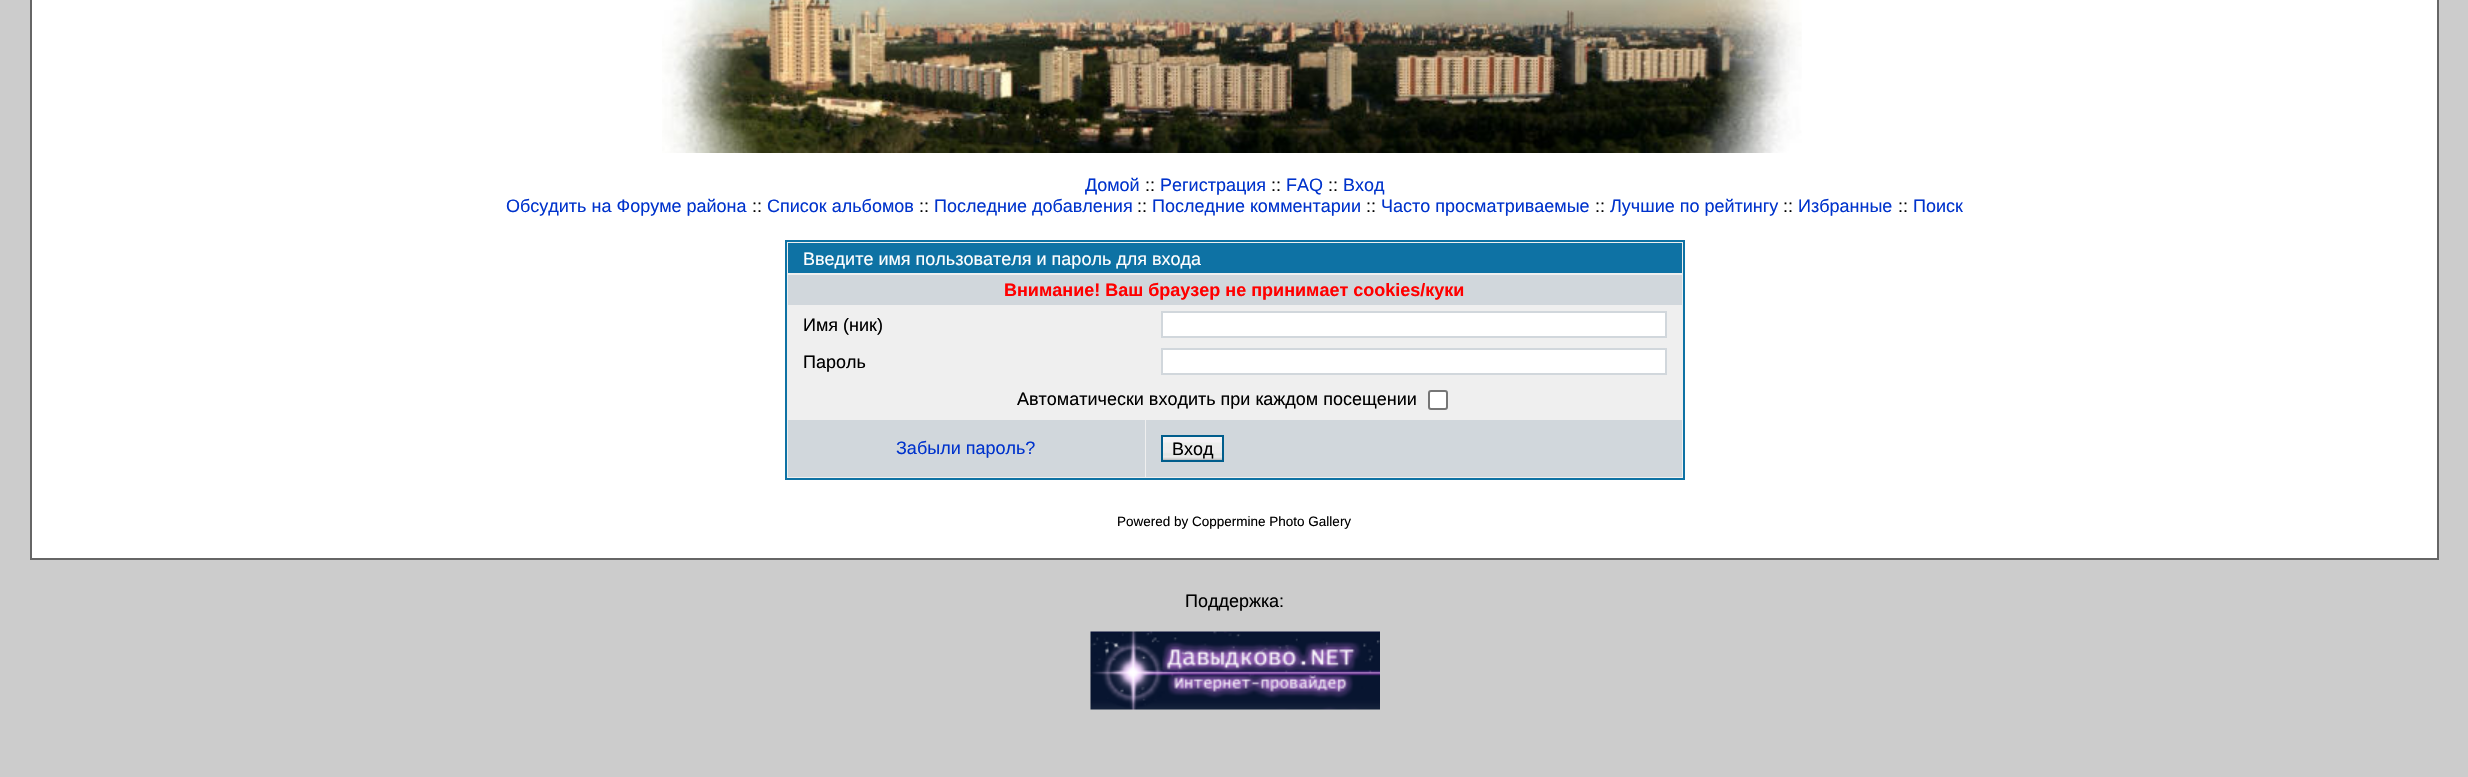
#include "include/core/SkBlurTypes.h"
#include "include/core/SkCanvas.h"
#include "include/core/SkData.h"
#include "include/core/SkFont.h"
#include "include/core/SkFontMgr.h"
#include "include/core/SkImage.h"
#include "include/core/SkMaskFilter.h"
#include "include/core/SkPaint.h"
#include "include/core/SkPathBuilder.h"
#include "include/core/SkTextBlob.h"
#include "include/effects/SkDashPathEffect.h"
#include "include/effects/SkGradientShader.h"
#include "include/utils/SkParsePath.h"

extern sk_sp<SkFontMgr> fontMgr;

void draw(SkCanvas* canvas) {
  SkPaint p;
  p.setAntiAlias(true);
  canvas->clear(SkColorSetRGB(204, 204, 204));
  p.setColor(SK_ColorWHITE);
  canvas->drawRect(SkRect::MakeLTRB(31, -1, 2438, 559), p);
  p.setStyle(SkPaint::kStroke_Style);
  p.setStrokeWidth(2);
  p.setColor(SkColorSetRGB(102, 102, 102));
  canvas->drawRect(SkRect::MakeLTRB(31, -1, 2438, 559), p);
  canvas->drawImageRect(SkImages::DeferredFromEncodedData(SkData::MakeFromFileName("images/1.png")), SkRect::MakeLTRB(662, 0, 1802, 153), SkSamplingOptions());
  p.setStyle(SkPaint::kFill_Style);
  p.setColor(SkColorSetRGB(239, 239, 239));
  canvas->drawRect(SkRect::MakeLTRB(786, 241, 1684, 479), p);
  p.setStyle(SkPaint::kStroke_Style);
  p.setColor(SkColorSetRGB(14, 114, 164));
  canvas->drawRect(SkRect::MakeLTRB(786, 241, 1684, 479), p);
  p.setStyle(SkPaint::kFill_Style);
  canvas->drawRect(SkRect::MakeLTRB(788, 243, 1682, 273), p);
  p.setColor(SkColorSetRGB(209, 215, 220));
  canvas->drawRect(SkRect::MakeLTRB(788, 275, 1682, 305), p);
  p.setColor(SK_ColorWHITE);
  canvas->drawRect(SkRect::MakeLTRB(1162, 312, 1666, 337), p);
  p.setStyle(SkPaint::kStroke_Style);
  p.setColor(SkColorSetRGB(209, 215, 220));
  canvas->drawRect(SkRect::MakeLTRB(1162, 312, 1666, 337), p);
  p.setStyle(SkPaint::kFill_Style);
  p.setColor(SK_ColorWHITE);
  canvas->drawRect(SkRect::MakeLTRB(1162, 349, 1666, 374), p);
  p.setStyle(SkPaint::kStroke_Style);
  p.setColor(SkColorSetRGB(209, 215, 220));
  canvas->drawRect(SkRect::MakeLTRB(1162, 349, 1666, 374), p);
  p.setStyle(SkPaint::kFill_Style);
  p.setColor(SK_ColorWHITE);
  canvas->drawRoundRect(SkRect::MakeLTRB(1429, 391, 1447, 409), 2, 2, p);
  p.setStyle(SkPaint::kStroke_Style);
  p.setColor(SkColorSetRGB(118, 118, 118));
  canvas->drawRoundRect(SkRect::MakeLTRB(1429, 391, 1447, 409), 2, 2, p);
  p.setStyle(SkPaint::kFill_Style);
  p.setColor(SkColorSetRGB(209, 215, 220));
  canvas->drawRect(SkRect::MakeLTRB(788, 420, 1145, 477), p);
  canvas->drawRect(SkRect::MakeLTRB(1146, 420, 1682, 477), p);
  canvas->drawImageRect(SkImages::DeferredFromEncodedData(SkData::MakeFromFileName("images/2.png")), SkRect::MakeLTRB(1163, 437, 1222, 460), SkSamplingOptions());
  p.setStyle(SkPaint::kStroke_Style);
  p.setColor(SkColorSetRGB(0, 93, 140));
  canvas->drawRect(SkRect::MakeLTRB(1162, 436, 1223, 461), p);
  canvas->drawImageRect(SkImages::DeferredFromEncodedData(SkData::MakeFromFileName("images/3.png")), SkRect::MakeLTRB(1090, 631, 1380, 710), SkSamplingOptions());
  SkFont font1(fontMgr->matchFamilyStyle("Liberation Sans", SkFontStyle::Normal()), 18);
  font1.setSubpixel(true);
  p.setStyle(SkPaint::kFill_Style);
  p.setColor(SkColorSetRGB(0, 51, 204));
  canvas->drawString("Домой", 1085, 191, font1, p);
  p.setColor(SK_ColorBLACK);
  canvas->drawString("::", 1145, 191, font1, p);
  p.setColor(SkColorSetRGB(0, 51, 204));
  canvas->drawString("Регистрация", 1160, 191, font1, p);
  p.setColor(SK_ColorBLACK);
  canvas->drawString("::", 1271, 191, font1, p);
  p.setColor(SkColorSetRGB(0, 51, 204));
  canvas->drawString("FAQ", 1286, 191, font1, p);
  p.setColor(SK_ColorBLACK);
  canvas->drawString("::", 1328, 191, font1, p);
  p.setColor(SkColorSetRGB(0, 51, 204));
  canvas->drawString("Вход", 1343, 191, font1, p);
  canvas->drawString("Обсудить на Форуме района", 506, 212, font1, p);
  p.setColor(SK_ColorBLACK);
  canvas->drawString("::", 752, 212, font1, p);
  p.setColor(SkColorSetRGB(0, 51, 204));
  canvas->drawString("Список альбомов", 767, 212, font1, p);
  p.setColor(SK_ColorBLACK);
  canvas->drawString("::", 919, 212, font1, p);
  p.setColor(SkColorSetRGB(0, 51, 204));
  canvas->drawString("Последние добавления", 934, 212, font1, p);
  p.setColor(SK_ColorBLACK);
  canvas->drawString("::", 1137, 212, font1, p);
  p.setColor(SkColorSetRGB(0, 51, 204));
  canvas->drawString("Последние комментарии", 1152, 212, font1, p);
  p.setColor(SK_ColorBLACK);
  canvas->drawString("::", 1366, 212, font1, p);
  p.setColor(SkColorSetRGB(0, 51, 204));
  canvas->drawString("Часто просматриваемые", 1381, 212, font1, p);
  p.setColor(SK_ColorBLACK);
  canvas->drawString("::", 1595, 212, font1, p);
  p.setColor(SkColorSetRGB(0, 51, 204));
  canvas->drawString("Лучшие по рейтингу", 1610, 212, font1, p);
  p.setColor(SK_ColorBLACK);
  canvas->drawString("::", 1783, 212, font1, p);
  p.setColor(SkColorSetRGB(0, 51, 204));
  canvas->drawString("Избранные", 1798, 212, font1, p);
  p.setColor(SK_ColorBLACK);
  canvas->drawString("::", 1898, 212, font1, p);
  p.setColor(SkColorSetRGB(0, 51, 204));
  canvas->drawString("Поиск", 1913, 212, font1, p);
  p.setColor(SK_ColorWHITE);
  canvas->drawString("Введите имя пользователя и пароль для входа", 803, 265, font1, p);
  SkFont font2(fontMgr->matchFamilyStyle("Liberation Sans", SkFontStyle::Bold()), 18);
  font2.setSubpixel(true);
  p.setColor(SkColorSetRGB(255, 0, 0));
  canvas->drawString("Внимание! Ваш браузер не принимает cookies/куки", 1004, 296, font2, p);
  p.setColor(SK_ColorBLACK);
  canvas->drawString("Имя (ник)", 803, 331, font1, p);
  canvas->drawString("Пароль", 803, 368, font1, p);
  canvas->drawString("Автоматически входить при каждом посещении", 1017, 405, font1, p);
  p.setColor(SkColorSetRGB(0, 51, 204));
  canvas->drawString("Забыли пароль?", 896, 454, font1, p);
  p.setColor(SK_ColorBLACK);
  canvas->drawString("Вход", 1172, 455, font1, p);
  SkFont font3(fontMgr->matchFamilyStyle("Liberation Sans", SkFontStyle::Normal()), 13.5f);
  font3.setSubpixel(true);
  canvas->drawString("Powered by Coppermine Photo Gallery", 1117, 526, font3, p);
  canvas->drawString("Поддержка:", 1185, 607, font1, p);
}
